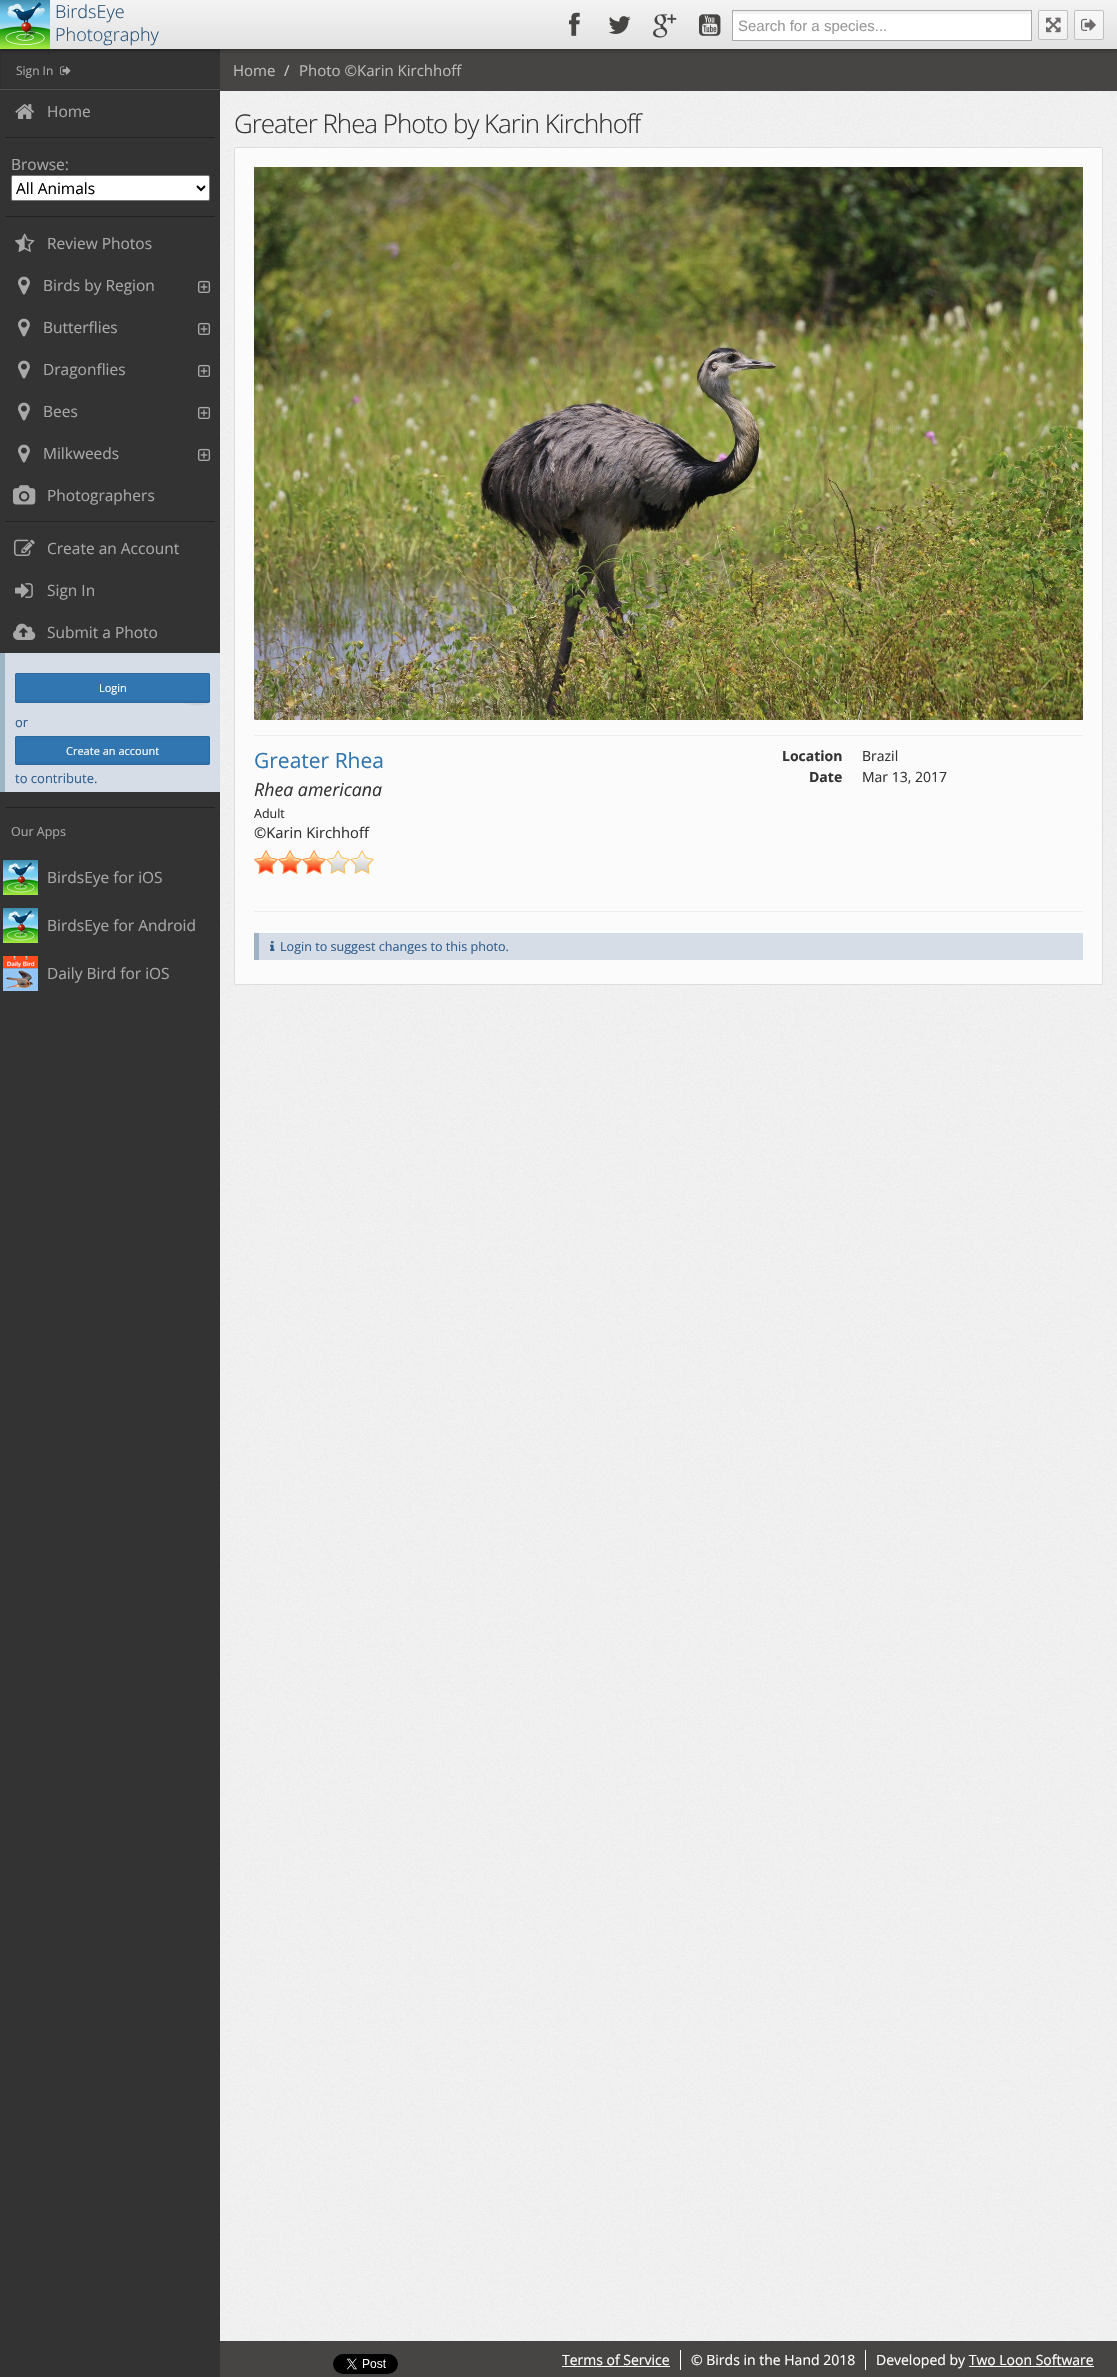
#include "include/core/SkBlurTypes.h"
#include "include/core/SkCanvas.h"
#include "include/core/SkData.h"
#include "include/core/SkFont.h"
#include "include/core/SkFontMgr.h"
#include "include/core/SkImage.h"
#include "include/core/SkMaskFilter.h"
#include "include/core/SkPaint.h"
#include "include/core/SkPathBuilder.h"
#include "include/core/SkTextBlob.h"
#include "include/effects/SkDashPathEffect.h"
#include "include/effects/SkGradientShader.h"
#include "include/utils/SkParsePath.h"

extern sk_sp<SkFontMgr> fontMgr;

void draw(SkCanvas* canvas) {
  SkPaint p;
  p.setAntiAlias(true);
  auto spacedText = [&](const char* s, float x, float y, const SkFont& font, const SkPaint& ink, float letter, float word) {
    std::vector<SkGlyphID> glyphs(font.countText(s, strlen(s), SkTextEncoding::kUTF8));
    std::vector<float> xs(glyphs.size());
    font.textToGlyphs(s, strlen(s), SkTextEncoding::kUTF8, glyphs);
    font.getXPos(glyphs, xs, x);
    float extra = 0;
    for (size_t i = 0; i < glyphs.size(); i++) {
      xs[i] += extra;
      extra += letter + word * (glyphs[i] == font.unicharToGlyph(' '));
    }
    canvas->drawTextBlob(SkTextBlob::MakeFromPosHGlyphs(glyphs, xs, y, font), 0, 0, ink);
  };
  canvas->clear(SK_ColorWHITE);
  canvas->drawImageRect(SkImages::DeferredFromEncodedData(SkData::MakeFromFileName("images/1.png")), SkRect::MakeLTRB(220, 91, 1117, 2341), SkSamplingOptions());
  p.setColor(SkColorSetRGB(51, 51, 51));
  canvas->drawRect(SkRect::MakeLTRB(0, 49, 220, 2377), p);
  p.setColor(SkColorSetRGB(47, 47, 47));
  canvas->drawRect(SkRect::MakeLTRB(0, 88, 220, 89), p);
  canvas->save();
  canvas->clipRect(SkRect::MakeLTRB(0, 50, 220, 89));
  p.setColor(SkColorSetARGB(26, 0, 0, 0));
  canvas->drawPath(SkPathBuilder(SkPathFillType::kEvenOdd).moveTo(-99, -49).lineTo(319, -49).lineTo(319, 188).lineTo(-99, 188).close().moveTo(1, 51).lineTo(221, 51).lineTo(221, 90).lineTo(1, 90).close().detach(), p);
  canvas->restore();
  p.setColor(SkColorSetRGB(71, 69, 68));
  canvas->drawRect(SkRect::MakeLTRB(220, 49, 1117, 91), p);
  p.setColor(SkColorSetARGB(102, 0, 0, 0));
  p.setMaskFilter(SkMaskFilter::MakeBlur(kNormal_SkBlurStyle, 2.5f));
  canvas->drawRect(SkRect::MakeLTRB(0, 1, 1117, 50), p);
  p.setMaskFilter(nullptr);
  {
    const SkColor colors[] = {SkColorSetRGB(243, 243, 243), SkColorSetRGB(226, 226, 226)};
    const float stops[] = {0, 1};
    const SkPoint ends[] = {{559, 0}, {559, 49}};
    p.setShader(SkGradientShader::MakeLinear(ends, colors, stops, 2, SkTileMode::kClamp));
    p.setAlpha(255);
  }
  canvas->drawRect(SkRect::MakeLTRB(50, 0, 1117, 49), p);
  canvas->drawImageRect(SkImages::DeferredFromEncodedData(SkData::MakeFromFileName("images/2.png")), SkRect::MakeLTRB(0, 0, 50, 49), SkSamplingOptions());
  canvas->drawImageRect(SkImages::DeferredFromEncodedData(SkData::MakeFromFileName("images/3.png")), SkRect::MakeLTRB(569, 12, 580, 36), SkSamplingOptions());
  canvas->drawImageRect(SkImages::DeferredFromEncodedData(SkData::MakeFromFileName("images/4.png")), SkRect::MakeLTRB(608, 16, 631, 34), SkSamplingOptions());
  canvas->drawImageRect(SkImages::DeferredFromEncodedData(SkData::MakeFromFileName("images/5.png")), SkRect::MakeLTRB(653, 14, 677, 38), SkSamplingOptions());
  canvas->drawImageRect(SkImages::DeferredFromEncodedData(SkData::MakeFromFileName("images/6.png")), SkRect::MakeLTRB(699, 14, 721, 36), SkSamplingOptions());
  {
    const SkColor colors[] = {SkColorSetRGB(238, 238, 238), SK_ColorWHITE};
    const float stops[] = {0.01f, 0.15f};
    const SkPoint ends[] = {{882, 11}, {882, 40}};
    p.setShader(SkGradientShader::MakeLinear(ends, colors, stops, 2, SkTileMode::kClamp));
    p.setAlpha(255);
  }
  canvas->drawRect(SkRect::MakeLTRB(733, 12, 1031, 40), p);
  p.setStyle(SkPaint::kStroke_Style);
  p.setStrokeWidth(1);
  p.setShader(nullptr);
  p.setColor(SkColorSetRGB(170, 170, 170));
  canvas->drawRect(SkRect::MakeLTRB(732.5f, 10.5f, 1031.5f, 40.5f), p);
  canvas->save();
  canvas->clipPath(SkPathBuilder().moveTo(1040, 10).lineTo(1066, 10).cubicTo(1067, 10, 1068, 11, 1068, 12).lineTo(1068, 38).cubicTo(1068, 39, 1067, 40, 1066, 40).lineTo(1040, 40).cubicTo(1039, 40, 1038, 39, 1038, 38).lineTo(1038, 12).cubicTo(1038, 11, 1039, 10, 1040, 10).close().detach(), true);
  p.setStyle(SkPaint::kFill_Style);
  {
    const SkColor colors[] = {SkColorSetRGB(248, 248, 248), SkColorSetRGB(241, 241, 241)};
    const float stops[] = {0, 1};
    const SkPoint ends[] = {{1053, 11}, {1053, 39}};
    p.setShader(SkGradientShader::MakeLinear(ends, colors, stops, 2, SkTileMode::kClamp));
    p.setAlpha(255);
  }
  canvas->drawRect(SkRect::MakeLTRB(1038, 11, 1068, 39), p);
  canvas->restore();
  p.setStyle(SkPaint::kStroke_Style);
  p.setShader(nullptr);
  p.setColor(SkColorSetRGB(191, 191, 191));
  canvas->drawRoundRect(SkRect::MakeLTRB(1038.5f, 10.5f, 1067.5f, 39.5f), 1.5f, 1.5f, p);
  canvas->drawImageRect(SkImages::DeferredFromEncodedData(SkData::MakeFromFileName("images/7.png")), SkRect::MakeLTRB(1046, 17, 1061, 33), SkSamplingOptions());
  canvas->save();
  canvas->clipPath(SkPathBuilder().moveTo(1076, 10).lineTo(1102, 10).cubicTo(1103, 10, 1104, 11, 1104, 12).lineTo(1104, 38).cubicTo(1104, 39, 1103, 40, 1102, 40).lineTo(1076, 40).cubicTo(1075, 40, 1074, 39, 1074, 38).lineTo(1074, 12).cubicTo(1074, 11, 1075, 10, 1076, 10).close().detach(), true);
  p.setStyle(SkPaint::kFill_Style);
  {
    const SkColor colors[] = {SkColorSetRGB(248, 248, 248), SkColorSetRGB(241, 241, 241)};
    const float stops[] = {0, 1};
    const SkPoint ends[] = {{1089, 11}, {1089, 39}};
    p.setShader(SkGradientShader::MakeLinear(ends, colors, stops, 2, SkTileMode::kClamp));
    p.setAlpha(255);
  }
  canvas->drawRect(SkRect::MakeLTRB(1074, 11, 1104, 39), p);
  canvas->restore();
  p.setStyle(SkPaint::kStroke_Style);
  p.setShader(nullptr);
  p.setColor(SkColorSetRGB(191, 191, 191));
  canvas->drawRoundRect(SkRect::MakeLTRB(1074.5f, 10.5f, 1103.5f, 39.5f), 1.5f, 1.5f, p);
  canvas->drawImageRect(SkImages::DeferredFromEncodedData(SkData::MakeFromFileName("images/8.png")), SkRect::MakeLTRB(1081, 18, 1096, 31), SkSamplingOptions());
  p.setStyle(SkPaint::kFill_Style);
  p.setColor(SkColorSetRGB(82, 81, 81));
  canvas->drawRect(SkRect::MakeLTRB(0, 89, 220, 90), p);
  canvas->drawImageRect(SkImages::DeferredFromEncodedData(SkData::MakeFromFileName("images/9.png")), SkRect::MakeLTRB(60, 66, 71, 75), SkSamplingOptions());
  canvas->drawImageRect(SkImages::DeferredFromEncodedData(SkData::MakeFromFileName("images/10.png")), SkRect::MakeLTRB(15, 104, 34, 119), SkSamplingOptions());
  p.setColor(SkColorSetRGB(34, 34, 34));
  canvas->drawRect(SkRect::MakeLTRB(5, 137, 215, 138), p);
  p.setColor(SK_ColorWHITE);
  canvas->drawRoundRect(SkRect::MakeLTRB(11.5f, 175.5f, 209.5f, 200.5f), 1.5f, 1.5f, p);
  p.setStyle(SkPaint::kStroke_Style);
  p.setColor(SkColorSetRGB(118, 118, 118));
  canvas->drawRoundRect(SkRect::MakeLTRB(11.5f, 175.5f, 209.5f, 200.5f), 1.5f, 1.5f, p);
  p.setStrokeWidth(2);
  p.setColor(SK_ColorBLACK);
  canvas->drawPath(SkPathBuilder().moveTo(197, 186).lineTo(201, 190).lineTo(205, 186).detach(), p);
  p.setStyle(SkPaint::kFill_Style);
  p.setColor(SkColorSetRGB(34, 34, 34));
  canvas->drawRect(SkRect::MakeLTRB(5, 216, 215, 217), p);
  canvas->drawImageRect(SkImages::DeferredFromEncodedData(SkData::MakeFromFileName("images/11.png")), SkRect::MakeLTRB(15, 233, 35, 252), SkSamplingOptions());
  canvas->drawImageRect(SkImages::DeferredFromEncodedData(SkData::MakeFromFileName("images/12.png")), SkRect::MakeLTRB(18, 276, 30, 295), SkSamplingOptions());
  canvas->drawImageRect(SkImages::DeferredFromEncodedData(SkData::MakeFromFileName("images/13.png")), SkRect::MakeLTRB(198, 280, 211, 293), SkSamplingOptions());
  canvas->drawImageRect(SkImages::DeferredFromEncodedData(SkData::MakeFromFileName("images/12.png")), SkRect::MakeLTRB(18, 318, 30, 337), SkSamplingOptions());
  canvas->drawImageRect(SkImages::DeferredFromEncodedData(SkData::MakeFromFileName("images/13.png")), SkRect::MakeLTRB(198, 322, 211, 335), SkSamplingOptions());
  canvas->drawImageRect(SkImages::DeferredFromEncodedData(SkData::MakeFromFileName("images/12.png")), SkRect::MakeLTRB(18, 360, 30, 379), SkSamplingOptions());
  canvas->drawImageRect(SkImages::DeferredFromEncodedData(SkData::MakeFromFileName("images/13.png")), SkRect::MakeLTRB(198, 364, 211, 377), SkSamplingOptions());
  canvas->drawImageRect(SkImages::DeferredFromEncodedData(SkData::MakeFromFileName("images/12.png")), SkRect::MakeLTRB(18, 402, 30, 421), SkSamplingOptions());
  canvas->drawImageRect(SkImages::DeferredFromEncodedData(SkData::MakeFromFileName("images/13.png")), SkRect::MakeLTRB(198, 406, 211, 419), SkSamplingOptions());
  canvas->drawImageRect(SkImages::DeferredFromEncodedData(SkData::MakeFromFileName("images/12.png")), SkRect::MakeLTRB(18, 444, 30, 463), SkSamplingOptions());
  canvas->drawImageRect(SkImages::DeferredFromEncodedData(SkData::MakeFromFileName("images/13.png")), SkRect::MakeLTRB(198, 448, 211, 461), SkSamplingOptions());
  canvas->drawImageRect(SkImages::DeferredFromEncodedData(SkData::MakeFromFileName("images/14.png")), SkRect::MakeLTRB(13, 485, 36, 505), SkSamplingOptions());
  canvas->drawRect(SkRect::MakeLTRB(5, 521, 215, 522), p);
  canvas->drawImageRect(SkImages::DeferredFromEncodedData(SkData::MakeFromFileName("images/15.png")), SkRect::MakeLTRB(14, 539, 35, 556), SkSamplingOptions());
  canvas->drawImageRect(SkImages::DeferredFromEncodedData(SkData::MakeFromFileName("images/16.png")), SkRect::MakeLTRB(15, 583, 33, 598), SkSamplingOptions());
  canvas->drawImageRect(SkImages::DeferredFromEncodedData(SkData::MakeFromFileName("images/17.png")), SkRect::MakeLTRB(13, 623, 36, 640), SkSamplingOptions());
  p.setColor(SkColorSetRGB(214, 221, 231));
  canvas->drawRect(SkRect::MakeLTRB(5, 653, 220, 792), p);
  p.setColor(SkColorSetRGB(156, 180, 197));
  canvas->drawRect(SkRect::MakeLTRB(0, 653, 5, 792), p);
  p.setColor(SkColorSetRGB(50, 118, 177));
  canvas->drawRoundRect(SkRect::MakeLTRB(15, 673, 210, 703), 2, 2, p);
  p.setColor(SkColorSetARGB(13, 0, 0, 0));
  canvas->drawPath(SkPathBuilder().moveTo(16, 700).lineTo(16, 702).lineTo(17, 702).lineTo(176, 702).cubicTo(180, 702, 209, 711, 209, 700).lineTo(208, 700).close().detach(), p);
  p.setStyle(SkPaint::kStroke_Style);
  p.setStrokeWidth(1);
  p.setColor(SkColorSetRGB(44, 105, 157));
  canvas->drawRoundRect(SkRect::MakeLTRB(15.5f, 673.5f, 209.5f, 702.5f), 1.5f, 1.5f, p);
  p.setStyle(SkPaint::kFill_Style);
  p.setColor(SkColorSetRGB(50, 118, 177));
  canvas->drawRoundRect(SkRect::MakeLTRB(15, 736, 210, 765), 2, 2, p);
  p.setColor(SkColorSetRGB(48, 112, 168));
  canvas->drawPath(SkPathBuilder().moveTo(16, 761).cubicTo(16, 762, 16, 764, 17, 764).lineTo(208, 764).cubicTo(209, 764, 209, 762, 209, 761).lineTo(209, 762).lineTo(17, 762).cubicTo(16, 762, 16, 762, 16, 761).close().detach(), p);
  p.setStyle(SkPaint::kStroke_Style);
  p.setColor(SkColorSetRGB(44, 105, 157));
  canvas->drawRoundRect(SkRect::MakeLTRB(15.5f, 736.5f, 209.5f, 764.5f), 1.5f, 1.5f, p);
  p.setStyle(SkPaint::kFill_Style);
  p.setColor(SkColorSetRGB(34, 34, 34));
  canvas->drawRect(SkRect::MakeLTRB(5, 807, 215, 808), p);
  canvas->drawImageRect(SkImages::DeferredFromEncodedData(SkData::MakeFromFileName("images/18.png")), SkRect::MakeLTRB(3, 860, 38, 895), SkSamplingOptions());
  canvas->drawImageRect(SkImages::DeferredFromEncodedData(SkData::MakeFromFileName("images/18.png")), SkRect::MakeLTRB(3, 908, 38, 943), SkSamplingOptions());
  canvas->drawImageRect(SkImages::DeferredFromEncodedData(SkData::MakeFromFileName("images/19.png")), SkRect::MakeLTRB(3, 956, 38, 991), SkSamplingOptions());
  p.setColor(SkColorSetRGB(251, 251, 251));
  canvas->drawRoundRect(SkRect::MakeLTRB(234.5f, 147.5f, 1102.5f, 984.5f), 1.5f, 1.5f, p);
  p.setStyle(SkPaint::kStroke_Style);
  p.setColor(SkColorSetRGB(221, 221, 221));
  canvas->drawRoundRect(SkRect::MakeLTRB(234.5f, 147.5f, 1102.5f, 984.5f), 1.5f, 1.5f, p);
  canvas->drawImageRect(SkImages::DeferredFromEncodedData(SkData::MakeFromFileName("images/20.png")), SkRect::MakeLTRB(254, 167, 1083, 720), SkSamplingOptions());
  p.setStyle(SkPaint::kFill_Style);
  p.setColor(SkColorSetRGB(238, 238, 238));
  canvas->drawRect(SkRect::MakeLTRB(254, 735, 1083, 736), p);
  canvas->drawImageRect(SkImages::DeferredFromEncodedData(SkData::MakeFromFileName("images/21.png")), SkRect::MakeLTRB(254, 850, 374, 874), SkSamplingOptions());
  canvas->drawImageRect(SkImages::DeferredFromEncodedData(SkData::MakeFromFileName("images/22.png")), SkRect::MakeLTRB(254, 850, 326, 874), SkSamplingOptions());
  canvas->drawRect(SkRect::MakeLTRB(254, 911, 1083, 912), p);
  p.setColor(SkColorSetRGB(214, 221, 231));
  canvas->drawRect(SkRect::MakeLTRB(259, 933, 1083, 960), p);
  p.setColor(SkColorSetRGB(156, 180, 197));
  canvas->drawRect(SkRect::MakeLTRB(254, 933, 259, 960), p);
  canvas->drawImageRect(SkImages::DeferredFromEncodedData(SkData::MakeFromFileName("images/23.png")), SkRect::MakeLTRB(270, 941, 275, 951), SkSamplingOptions());
  p.setColor(SkColorSetRGB(71, 69, 68));
  canvas->drawRect(SkRect::MakeLTRB(220, 2341, 1117, 2377), p);
  canvas->drawImageRect(SkImages::DeferredFromEncodedData(SkData::MakeFromFileName("images/24.png")), SkRect::MakeLTRB(333, 2354, 398, 2374), SkSamplingOptions());
  p.setColor(SK_ColorWHITE);
  canvas->drawRect(SkRect::MakeLTRB(680, 2350, 681, 2370), p);
  canvas->drawRect(SkRect::MakeLTRB(562, 2366, 670, 2367), p);
  canvas->drawRect(SkRect::MakeLTRB(865, 2350, 866, 2370), p);
  canvas->drawRect(SkRect::MakeLTRB(969, 2366, 1094, 2367), p);
  SkFont font1(fontMgr->matchFamilyStyle("Open Sans", SkFontStyle(300, SkFontStyle::kNormal_Width, SkFontStyle::kUpright_Slant)), 18);
  font1.setSubpixel(true);
  p.setColor(SkColorSetRGB(33, 78, 117));
  canvas->drawString("BirdsEye", 55, 18, font1, p);
  canvas->drawString("Photography", 55, 41, font1, p);
  SkFont font2(fontMgr->matchFamilyStyle("Liberation Sans", SkFontStyle::Normal()), 15);
  font2.setSubpixel(true);
  p.setColor(SkColorSetRGB(153, 153, 153));
  canvas->drawString("Search for a species...", 738, 31, font2, p);
  SkFont font3(fontMgr->matchFamilyStyle("Open Sans", SkFontStyle::Normal()), 12);
  font3.setSubpixel(true);
  p.setColor(SkColorSetRGB(168, 168, 168));
  canvas->drawString("Sign In", 16, 75, font3, p);
  SkFont font4(fontMgr->matchFamilyStyle("Open Sans", SkFontStyle::Normal()), 15.5f);
  font4.setSubpixel(true);
  canvas->drawString("Home", 47, 117, font4, p);
  canvas->drawString("Browse:", 11, 170, font4, p);
  p.setColor(SK_ColorBLACK);
  canvas->drawString("All Animals", 16, 194, font4, p);
  p.setColor(SkColorSetRGB(168, 168, 168));
  canvas->drawString("Review Photos", 47, 249, font4, p);
  canvas->drawString("Birds by Region", 43, 291, font4, p);
  canvas->drawString("Butterflies", 43, 333, font4, p);
  canvas->drawString("Dragonflies", 43, 375, font4, p);
  canvas->drawString("Bees", 43, 417, font4, p);
  canvas->drawString("Milkweeds", 43, 459, font4, p);
  canvas->drawString("Photographers", 47, 501, font4, p);
  canvas->drawString("Create an Account", 47, 554, font4, p);
  canvas->drawString("Sign In", 47, 596, font4, p);
  canvas->drawString("Submit a Photo", 47, 638, font4, p);
  SkFont font5(fontMgr->matchFamilyStyle("Open Sans", SkFontStyle::Normal()), 11);
  font5.setSubpixel(true);
  p.setColor(SK_ColorWHITE);
  canvas->drawString("Login", 99, 692, font5, p);
  SkFont font6(fontMgr->matchFamilyStyle("Open Sans", SkFontStyle::Normal()), 13);
  font6.setSubpixel(true);
  p.setColor(SkColorSetRGB(48, 93, 140));
  canvas->drawString("or", 15, 727, font6, p);
  p.setColor(SK_ColorWHITE);
  canvas->drawString("Create an account", 66, 755, font5, p);
  p.setColor(SkColorSetRGB(48, 93, 140));
  canvas->drawString("to contribute.", 15, 783, font6, p);
  SkFont font7(fontMgr->matchFamilyStyle("Open Sans", SkFontStyle::Normal()), 12.5f);
  font7.setSubpixel(true);
  p.setColor(SkColorSetRGB(168, 168, 168));
  canvas->drawString("Our Apps", 11, 836, font7, p);
  canvas->drawString("BirdsEye for iOS", 47, 883, font4, p);
  canvas->drawString("BirdsEye for Android", 47, 931, font4, p);
  canvas->drawString("Daily Bird for iOS", 47, 979, font4, p);
  SkFont font8(fontMgr->matchFamilyStyle("Open Sans", SkFontStyle::Normal()), 15);
  font8.setSubpixel(true);
  p.setColor(SkColorSetRGB(187, 187, 187));
  canvas->drawString("Home", 233, 76, font8, p);
  p.setColor(SkColorSetRGB(204, 204, 204));
  canvas->drawString("/", 284, 76, font8, p);
  p.setColor(SkColorSetRGB(187, 187, 187));
  canvas->drawString("Photo ©Karin Kirchhoff", 299, 76, font8, p);
  SkFont font9(fontMgr->matchFamilyStyle("Open Sans", SkFontStyle(300, SkFontStyle::kNormal_Width, SkFontStyle::kUpright_Slant)), 25.9f);
  font9.setSubpixel(true);
  p.setColor(SkColorSetRGB(51, 51, 51));
  spacedText("Greater Rhea Photo by Karin Kirchhoff", 234, 133, font9, p, -1, 0);
  SkFont font10(fontMgr->matchFamilyStyle("Open Sans", SkFontStyle::Normal()), 21);
  font10.setSubpixel(true);
  p.setColor(SkColorSetRGB(50, 118, 177));
  canvas->drawString("Greater Rhea", 254, 768, font10, p);
  SkFont font11(fontMgr->matchFamilyStyle("Open Sans", SkFontStyle::Italic()), 17.75f);
  font11.setSubpixel(true);
  p.setColor(SkColorSetRGB(51, 51, 51));
  canvas->drawString("Rhea americana", 254, 796, font11, p);
  canvas->drawString("Adult", 254, 818, font7, p);
  SkFont font12(fontMgr->matchFamilyStyle("Open Sans", SkFontStyle::Normal()), 14.75f);
  font12.setSubpixel(true);
  canvas->drawString("©Karin Kirchhoff", 254, 838, font12, p);
  SkFont font13(fontMgr->matchFamilyStyle("Open Sans", SkFontStyle::Bold()), 14);
  font13.setSubpixel(true);
  canvas->drawString("Location", 782, 761, font13, p);
  SkFont font14(fontMgr->matchFamilyStyle("Open Sans", SkFontStyle::Normal()), 14);
  font14.setSubpixel(true);
  canvas->drawString("Brazil", 862, 761, font14, p);
  canvas->drawString("Date", 809, 782, font13, p);
  canvas->drawString("Mar 13, 2017", 862, 782, font14, p);
  SkFont font15(fontMgr->matchFamilyStyle("Open Sans", SkFontStyle::Normal()), 12.6f);
  font15.setSubpixel(true);
  p.setColor(SkColorSetRGB(48, 93, 140));
  canvas->drawString("Login to suggest changes to this photo.", 280, 951, font15, p);
  p.setColor(SK_ColorWHITE);
  canvas->drawString("Terms of Service", 562, 2365, font14, p);
  canvas->drawString("© Birds in the Hand 2018", 691, 2365, font14, p);
  canvas->drawString("Developed by Two Loon Software", 876, 2365, font14, p);
}
